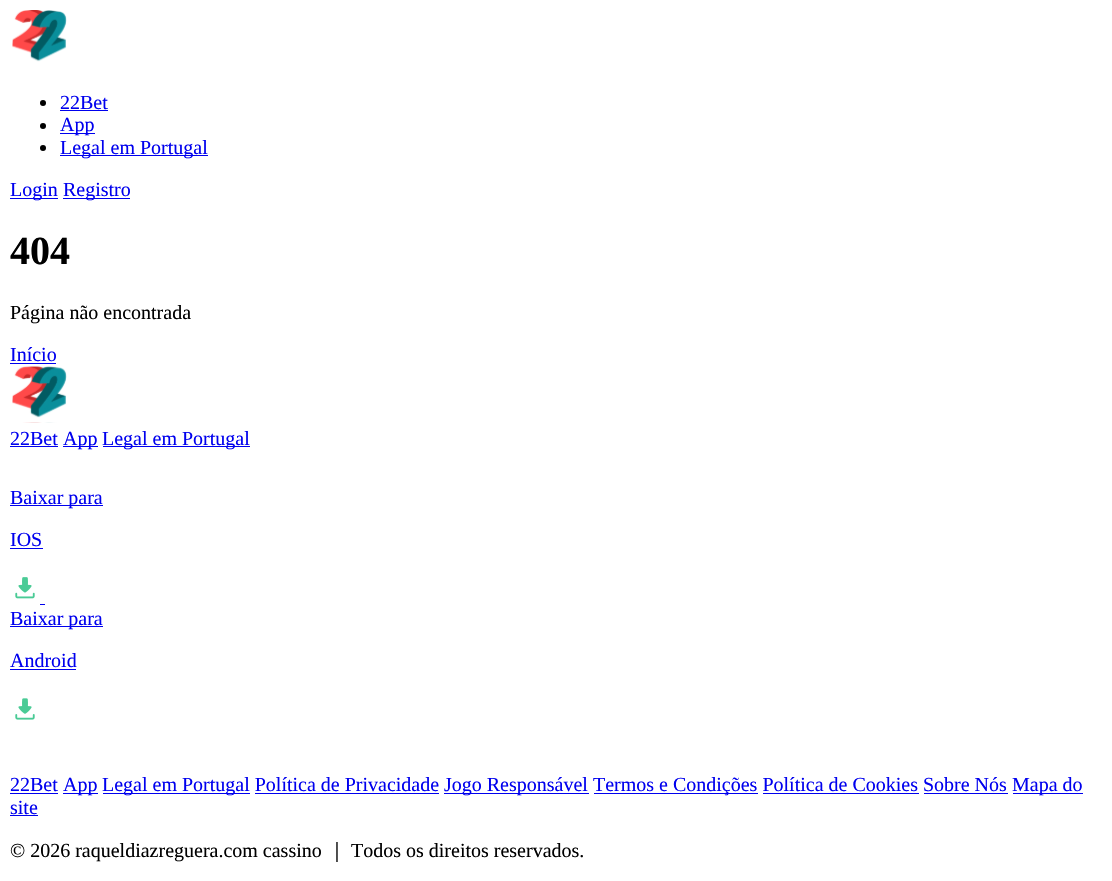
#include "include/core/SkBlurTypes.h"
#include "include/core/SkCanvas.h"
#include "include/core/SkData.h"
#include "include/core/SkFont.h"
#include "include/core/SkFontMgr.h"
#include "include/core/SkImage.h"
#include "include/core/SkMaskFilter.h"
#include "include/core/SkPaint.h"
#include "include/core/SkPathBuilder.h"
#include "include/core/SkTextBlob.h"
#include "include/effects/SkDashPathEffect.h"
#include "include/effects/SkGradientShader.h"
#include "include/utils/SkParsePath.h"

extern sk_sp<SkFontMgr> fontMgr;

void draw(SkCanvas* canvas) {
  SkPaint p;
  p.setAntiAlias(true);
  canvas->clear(SK_ColorWHITE);
  canvas->drawImageRect(SkImages::DeferredFromEncodedData(SkData::MakeFromFileName("images/1.png")), SkRect::MakeLTRB(12, 10, 67, 62), SkSamplingOptions());
  p.setColor(SK_ColorBLACK);
  canvas->drawCircle(43, 103, 3, p);
  p.setColor(SkColorSetRGB(0, 0, 238));
  canvas->drawRect(SkRect::MakeLTRB(60, 110, 108, 111), p);
  p.setColor(SK_ColorBLACK);
  canvas->drawCircle(43, 126, 3, p);
  p.setColor(SkColorSetRGB(0, 0, 238));
  canvas->drawRect(SkRect::MakeLTRB(60, 133, 95, 134), p);
  p.setColor(SK_ColorBLACK);
  canvas->drawCircle(43, 148, 3, p);
  p.setColor(SkColorSetRGB(0, 0, 238));
  canvas->drawRect(SkRect::MakeLTRB(60, 155, 208, 156), p);
  canvas->drawRect(SkRect::MakeLTRB(10, 198, 58, 199), p);
  canvas->drawRect(SkRect::MakeLTRB(63, 198, 130, 199), p);
  canvas->drawRect(SkRect::MakeLTRB(10, 363, 56, 364), p);
  canvas->drawImageRect(SkImages::DeferredFromEncodedData(SkData::MakeFromFileName("images/2.png")), SkRect::MakeLTRB(12, 366, 67, 423), SkSamplingOptions());
  canvas->drawRect(SkRect::MakeLTRB(10, 446, 58, 447), p);
  canvas->drawRect(SkRect::MakeLTRB(63, 446, 98, 447), p);
  canvas->drawRect(SkRect::MakeLTRB(103, 446, 250, 447), p);
  canvas->drawRect(SkRect::MakeLTRB(10, 505, 103, 506), p);
  canvas->drawRect(SkRect::MakeLTRB(10, 548, 43, 549), p);
  canvas->drawImageRect(SkImages::DeferredFromEncodedData(SkData::MakeFromFileName("images/3.png")), SkRect::MakeLTRB(15, 577, 35, 599), SkSamplingOptions());
  canvas->drawRect(SkRect::MakeLTRB(40, 604, 45, 605), p);
  canvas->drawRect(SkRect::MakeLTRB(10, 626, 103, 627), p);
  canvas->drawRect(SkRect::MakeLTRB(10, 669, 76, 670), p);
  canvas->drawImageRect(SkImages::DeferredFromEncodedData(SkData::MakeFromFileName("images/4.png")), SkRect::MakeLTRB(15, 698, 35, 720), SkSamplingOptions());
  canvas->drawRect(SkRect::MakeLTRB(10, 793, 58, 794), p);
  canvas->drawRect(SkRect::MakeLTRB(63, 793, 98, 794), p);
  canvas->drawRect(SkRect::MakeLTRB(103, 793, 250, 794), p);
  canvas->drawRect(SkRect::MakeLTRB(444, 793, 589, 794), p);
  canvas->drawRect(SkRect::MakeLTRB(594, 793, 758, 794), p);
  canvas->drawRect(SkRect::MakeLTRB(1013, 793, 1083, 794), p);
  canvas->drawRect(SkRect::MakeLTRB(255, 793, 439, 794), p);
  canvas->drawRect(SkRect::MakeLTRB(763, 793, 919, 794), p);
  canvas->drawRect(SkRect::MakeLTRB(924, 793, 1008, 794), p);
  canvas->drawRect(SkRect::MakeLTRB(10, 815, 38, 816), p);
  SkFont font1(fontMgr->matchFamilyStyle("Liberation Serif", SkFontStyle::Normal()), 20);
  font1.setSubpixel(true);
  canvas->drawString("22Bet", 60, 109, font1, p);
  canvas->drawString("App", 60, 131, font1, p);
  canvas->drawString("Legal em Portugal", 60, 154, font1, p);
  canvas->drawString("Login", 10, 196, font1, p);
  canvas->drawString("Registro", 63, 196, font1, p);
  SkFont font2(fontMgr->matchFamilyStyle("Liberation Serif", SkFontStyle::Bold()), 40);
  font2.setSubpixel(true);
  p.setColor(SK_ColorBLACK);
  canvas->drawString("404", 10, 264, font2, p);
  canvas->drawString("Página não encontrada", 10, 319, font1, p);
  p.setColor(SkColorSetRGB(0, 0, 238));
  canvas->drawString("Início", 10, 361, font1, p);
  canvas->drawString("22Bet", 10, 445, font1, p);
  canvas->drawString("App", 63, 445, font1, p);
  canvas->drawString("Legal em Portugal", 102, 445, font1, p);
  canvas->drawString("Baixar para", 10, 504, font1, p);
  canvas->drawString("IOS", 10, 546, font1, p);
  canvas->drawString("Baixar para", 10, 625, font1, p);
  canvas->drawString("Android", 10, 667, font1, p);
  canvas->drawString("22Bet", 10, 791, font1, p);
  canvas->drawString("App", 63, 791, font1, p);
  canvas->drawString("Legal em Portugal Política de Privacidade", 102, 791, font1, p);
  canvas->drawString("Jogo Responsável", 444, 791, font1, p);
  canvas->drawString("Termos e Condições Política de Cookies Sobre Nós", 593, 791, font1, p);
  canvas->drawString("Mapa do", 1012, 791, font1, p);
  canvas->drawString("site", 10, 814, font1, p);
  p.setColor(SK_ColorBLACK);
  canvas->drawString("© 2026 raqueldiazreguera.com cassino", 10, 857, font1, p);
  SkFont font3(fontMgr->matchFamilyStyle("WenQuanYi Zen Hei", SkFontStyle(500, SkFontStyle::kNormal_Width, SkFontStyle::kUpright_Slant)), 20);
  font3.setSubpixel(true);
  canvas->drawString("｜", 327, 857, font3, p);
  canvas->drawString("Todos os direitos reservados.", 351, 857, font1, p);
}
